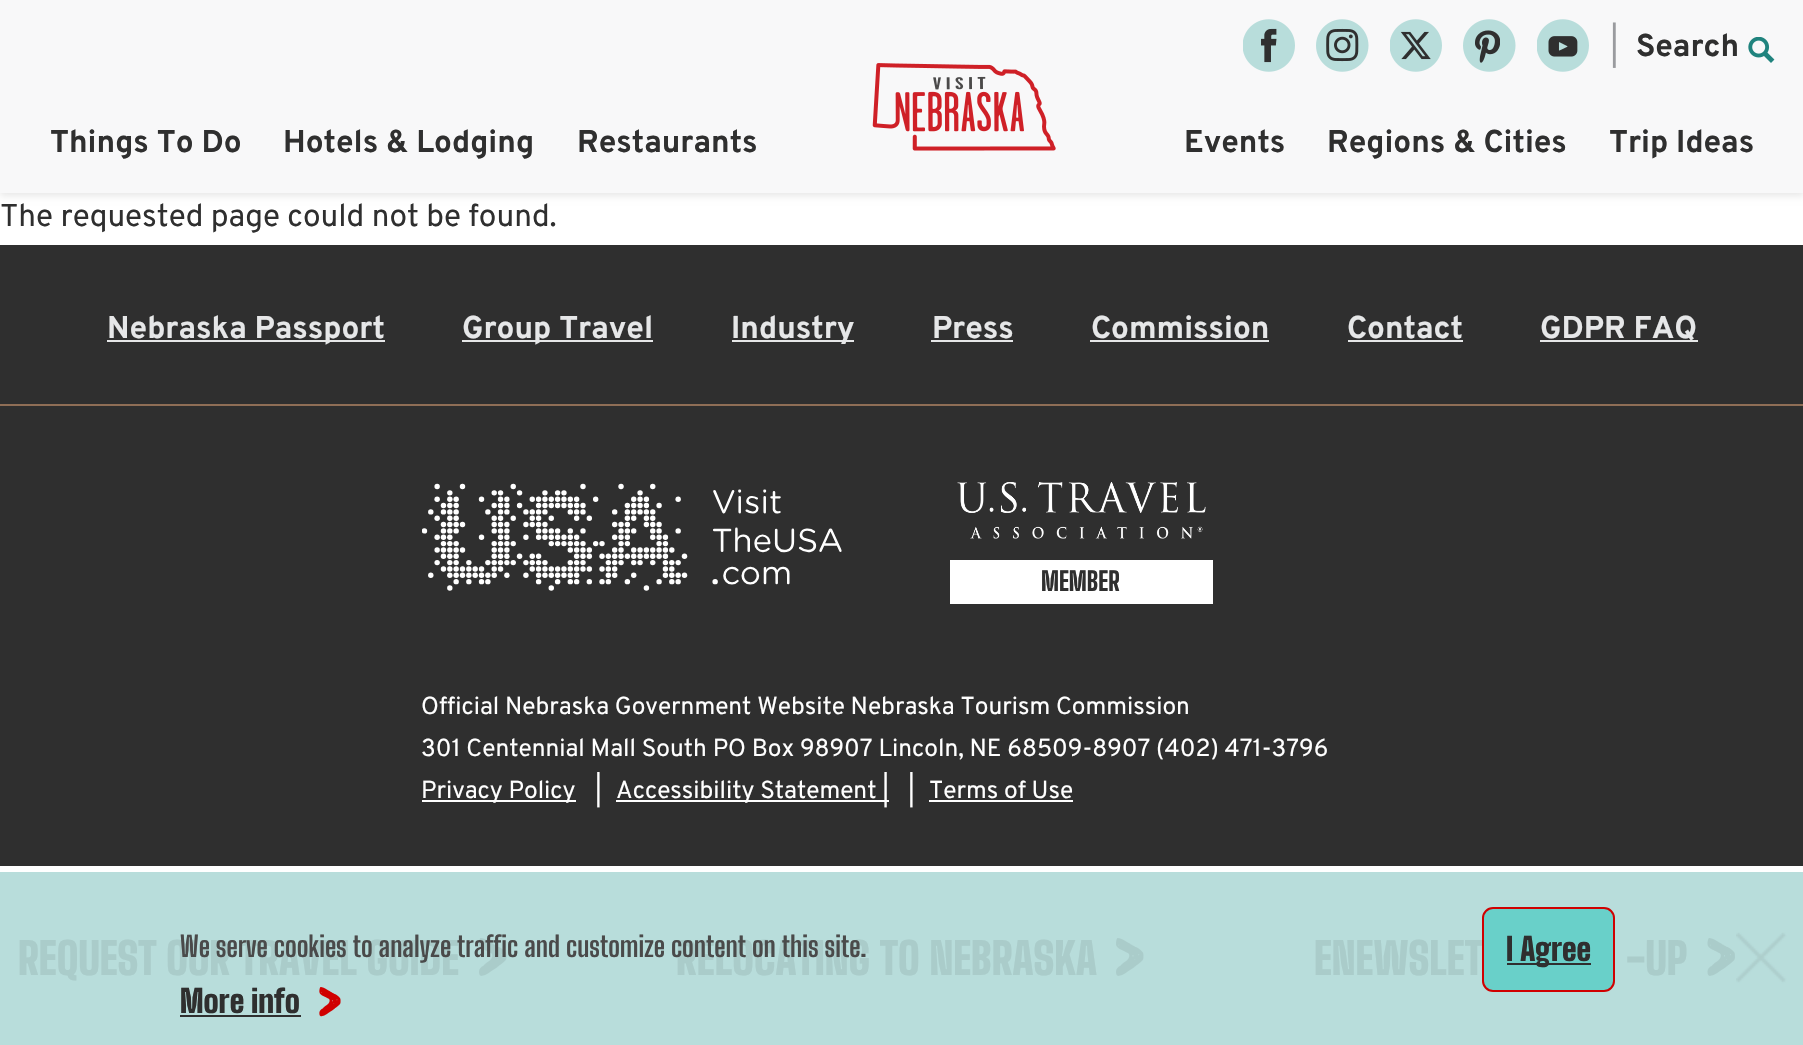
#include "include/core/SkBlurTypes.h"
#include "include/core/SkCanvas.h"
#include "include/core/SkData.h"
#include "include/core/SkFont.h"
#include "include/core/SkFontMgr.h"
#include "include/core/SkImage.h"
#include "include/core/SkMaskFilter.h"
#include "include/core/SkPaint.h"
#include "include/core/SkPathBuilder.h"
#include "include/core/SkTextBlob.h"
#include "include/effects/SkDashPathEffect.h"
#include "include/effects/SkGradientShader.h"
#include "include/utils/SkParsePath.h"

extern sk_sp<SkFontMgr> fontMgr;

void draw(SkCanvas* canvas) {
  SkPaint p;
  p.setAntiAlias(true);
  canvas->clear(SK_ColorWHITE);
  p.setColor(SkColorSetARGB(23, 0, 0, 0));
  p.setMaskFilter(SkMaskFilter::MakeBlur(kNormal_SkBlurStyle, 3.5f));
  canvas->drawRect(SkRect::MakeLTRB(0, 4, 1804, 196), p);
  p.setMaskFilter(nullptr);
  p.setColor(SkColorSetRGB(248, 248, 249));
  canvas->drawRect(SkRect::MakeLTRB(0, 0, 1803, 193), p);
  canvas->drawImageRect(SkImages::DeferredFromEncodedData(SkData::MakeFromFileName("images/1.png")), SkRect::MakeLTRB(1243, 19, 1295, 72), SkSamplingOptions());
  canvas->drawImageRect(SkImages::DeferredFromEncodedData(SkData::MakeFromFileName("images/2.png")), SkRect::MakeLTRB(1316, 19, 1369, 72), SkSamplingOptions());
  canvas->drawImageRect(SkImages::DeferredFromEncodedData(SkData::MakeFromFileName("images/3.png")), SkRect::MakeLTRB(1390, 19, 1442, 72), SkSamplingOptions());
  canvas->drawImageRect(SkImages::DeferredFromEncodedData(SkData::MakeFromFileName("images/4.png")), SkRect::MakeLTRB(1463, 19, 1516, 72), SkSamplingOptions());
  canvas->drawImageRect(SkImages::DeferredFromEncodedData(SkData::MakeFromFileName("images/5.png")), SkRect::MakeLTRB(1537, 19, 1589, 72), SkSamplingOptions());
  canvas->drawImageRect(SkImages::DeferredFromEncodedData(SkData::MakeFromFileName("images/6.png")), SkRect::MakeLTRB(1748, 37, 1775, 63), SkSamplingOptions());
  canvas->drawImageRect(SkImages::DeferredFromEncodedData(SkData::MakeFromFileName("images/7.png")), SkRect::MakeLTRB(872, 63, 1056, 151), SkSamplingOptions());
  p.setColor(SkColorSetRGB(47, 47, 47));
  canvas->drawRect(SkRect::MakeLTRB(0, 245, 1803, 404), p);
  p.setColor(SkColorSetRGB(143, 110, 86));
  canvas->drawRect(SkRect::MakeLTRB(0, 404, 1803, 406), p);
  p.setColor(SkColorSetRGB(230, 231, 232));
  canvas->drawRect(SkRect::MakeLTRB(107, 340, 385, 342), p);
  canvas->drawRect(SkRect::MakeLTRB(462, 340, 653, 342), p);
  canvas->drawRect(SkRect::MakeLTRB(732, 340, 854, 342), p);
  canvas->drawRect(SkRect::MakeLTRB(931, 340, 1013, 342), p);
  canvas->drawRect(SkRect::MakeLTRB(1090, 340, 1269, 342), p);
  canvas->drawRect(SkRect::MakeLTRB(1348, 340, 1463, 342), p);
  canvas->drawRect(SkRect::MakeLTRB(1540, 340, 1698, 342), p);
  p.setColor(SkColorSetRGB(47, 47, 47));
  canvas->drawRect(SkRect::MakeLTRB(0, 406, 1803, 866), p);
  canvas->drawImageRect(SkImages::DeferredFromEncodedData(SkData::MakeFromFileName("images/8.png")), SkRect::MakeLTRB(422, 483, 842, 591), SkSamplingOptions());
  canvas->drawImageRect(SkImages::DeferredFromEncodedData(SkData::MakeFromFileName("images/9.png")), SkRect::MakeLTRB(957, 482, 1206, 539), SkSamplingOptions());
  p.setColor(SK_ColorWHITE);
  canvas->drawRect(SkRect::MakeLTRB(950, 560, 1213, 604), p);
  canvas->drawRect(SkRect::MakeLTRB(422, 800, 576, 802), p);
  canvas->drawRect(SkRect::MakeLTRB(616, 800, 889, 802), p);
  canvas->drawRect(SkRect::MakeLTRB(929, 800, 1073, 802), p);
  p.setColor(SkColorSetRGB(184, 221, 219));
  canvas->drawRect(SkRect::MakeLTRB(0, 872, 1803, 1045), p);
  canvas->drawImageRect(SkImages::DeferredFromEncodedData(SkData::MakeFromFileName("images/10.png")), SkRect::MakeLTRB(479, 938, 507, 976), SkSamplingOptions());
  canvas->drawImageRect(SkImages::DeferredFromEncodedData(SkData::MakeFromFileName("images/10.png")), SkRect::MakeLTRB(1116, 938, 1144, 976), SkSamplingOptions());
  canvas->drawImageRect(SkImages::DeferredFromEncodedData(SkData::MakeFromFileName("images/11.png")), SkRect::MakeLTRB(1707, 938, 1735, 976), SkSamplingOptions());
  canvas->drawImageRect(SkImages::DeferredFromEncodedData(SkData::MakeFromFileName("images/12.png")), SkRect::MakeLTRB(1736, 932, 1787, 984), SkSamplingOptions());
  canvas->drawImageRect(SkImages::DeferredFromEncodedData(SkData::MakeFromFileName("images/13.png")), SkRect::MakeLTRB(319, 987, 341, 1017), SkSamplingOptions());
  p.setColor(SkColorSetRGB(47, 47, 47));
  canvas->drawRect(SkRect::MakeLTRB(180, 1015, 301, 1017), p);
  SkFont font1(fontMgr->matchFamilyStyle("Overpass", SkFontStyle::Normal()), 31.5f);
  font1.setSubpixel(true);
  p.setColor(SkColorSetRGB(154, 155, 159));
  canvas->drawString("|", 1610, 56, font1, p);
  SkFont font2(fontMgr->matchFamilyStyle("Overpass", SkFontStyle::Bold()), 31.5f);
  font2.setSubpixel(true);
  p.setColor(SkColorSetRGB(47, 47, 47));
  canvas->drawString("Search", 1636, 56, font2, p);
  canvas->drawString("Things To Do", 50, 152, font2, p);
  canvas->drawString("Hotels & Lodging", 283, 152, font2, p);
  canvas->drawString("Restaurants", 577, 152, font2, p);
  canvas->drawString("Events", 1184, 152, font2, p);
  canvas->drawString("Regions & Cities", 1327, 152, font2, p);
  canvas->drawString("Trip Ideas", 1609, 152, font2, p);
  canvas->drawString("The requested page could not be found.", 0, 226, font1, p);
  p.setColor(SkColorSetRGB(230, 231, 232));
  canvas->drawString("Nebraska Passport", 107, 338, font2, p);
  canvas->drawString("Group Travel", 462, 338, font2, p);
  canvas->drawString("Industry", 731, 338, font2, p);
  canvas->drawString("Press", 932, 338, font2, p);
  canvas->drawString("Commission", 1091, 338, font2, p);
  canvas->drawString("Contact", 1347, 338, font2, p);
  canvas->drawString("GDPR FAQ", 1540, 338, font2, p);
  SkFont font3(fontMgr->matchFamilyStyle("Big Shoulders Display", SkFontStyle(800, SkFontStyle::kNormal_Width, SkFontStyle::kUpright_Slant)), 26);
  font3.setSubpixel(true);
  p.setColor(SkColorSetRGB(47, 47, 47));
  canvas->drawString("MEMBER", 1041, 591, font3, p);
  SkFont font4(fontMgr->matchFamilyStyle("Overpass", SkFontStyle::Normal()), 24.5f);
  font4.setSubpixel(true);
  p.setColor(SK_ColorWHITE);
  canvas->drawString("Official Nebraska Government Website Nebraska Tourism Commission", 421, 714, font4, p);
  canvas->drawString("301 Centennial Mall South PO Box 98907 Lincoln, NE 68509-8907 (402) 471-3796", 421, 756, font4, p);
  canvas->drawString("Privacy Policy", 421, 798, font4, p);
  canvas->drawString("|", 595, 798, font4, p);
  canvas->drawString("Accessibility Statement |", 616, 798, font4, p);
  canvas->drawString("|", 908, 798, font4, p);
  canvas->drawString("Terms of Use", 929, 798, font4, p);
  SkFont font5(fontMgr->matchFamilyStyle("Big Shoulders Display", SkFontStyle(900, SkFontStyle::kNormal_Width, SkFontStyle::kUpright_Slant)), 43.75f);
  font5.setSubpixel(true);
  p.setColor(SkColorSetRGB(170, 204, 202));
  canvas->drawString("REQUEST OUR TRAVEL GUIDE", 18, 975, font5, p);
  canvas->drawString("RELOCATING TO NEBRASKA", 676, 975, font5, p);
  canvas->drawString("ENEWSLET", 1314, 975, font5, p);
  canvas->drawString("-UP", 1626, 975, font5, p);
  SkFont font6(fontMgr->matchFamilyStyle("Big Shoulders Display", SkFontStyle::Bold()), 28);
  font6.setSubpixel(true);
  p.setColor(SkColorSetRGB(74, 74, 74));
  canvas->drawString("We serve cookies to analyze traffic and customize content on this site.", 180, 957, font6, p);
  SkFont font7(fontMgr->matchFamilyStyle("Big Shoulders Display", SkFontStyle(900, SkFontStyle::kNormal_Width, SkFontStyle::kUpright_Slant)), 31.5f);
  font7.setSubpixel(true);
  p.setColor(SkColorSetRGB(47, 47, 47));
  canvas->drawString("More info", 180, 1013, font7, p);
  p.setColor(SkColorSetRGB(105, 208, 201));
  canvas->drawRoundRect(SkRect::MakeLTRB(1483, 908, 1614, 991), 10, 10, p);
  p.setStyle(SkPaint::kStroke_Style);
  p.setStrokeWidth(2);
  p.setColor(SkColorSetRGB(208, 0, 0));
  canvas->drawRoundRect(SkRect::MakeLTRB(1483, 908, 1614, 991), 10, 10, p);
  p.setStyle(SkPaint::kFill_Style);
  p.setColor(SkColorSetRGB(47, 47, 47));
  canvas->drawRect(SkRect::MakeLTRB(1507, 963, 1591, 965), p);
  canvas->drawString("I Agree", 1506, 961, font7, p);
}
